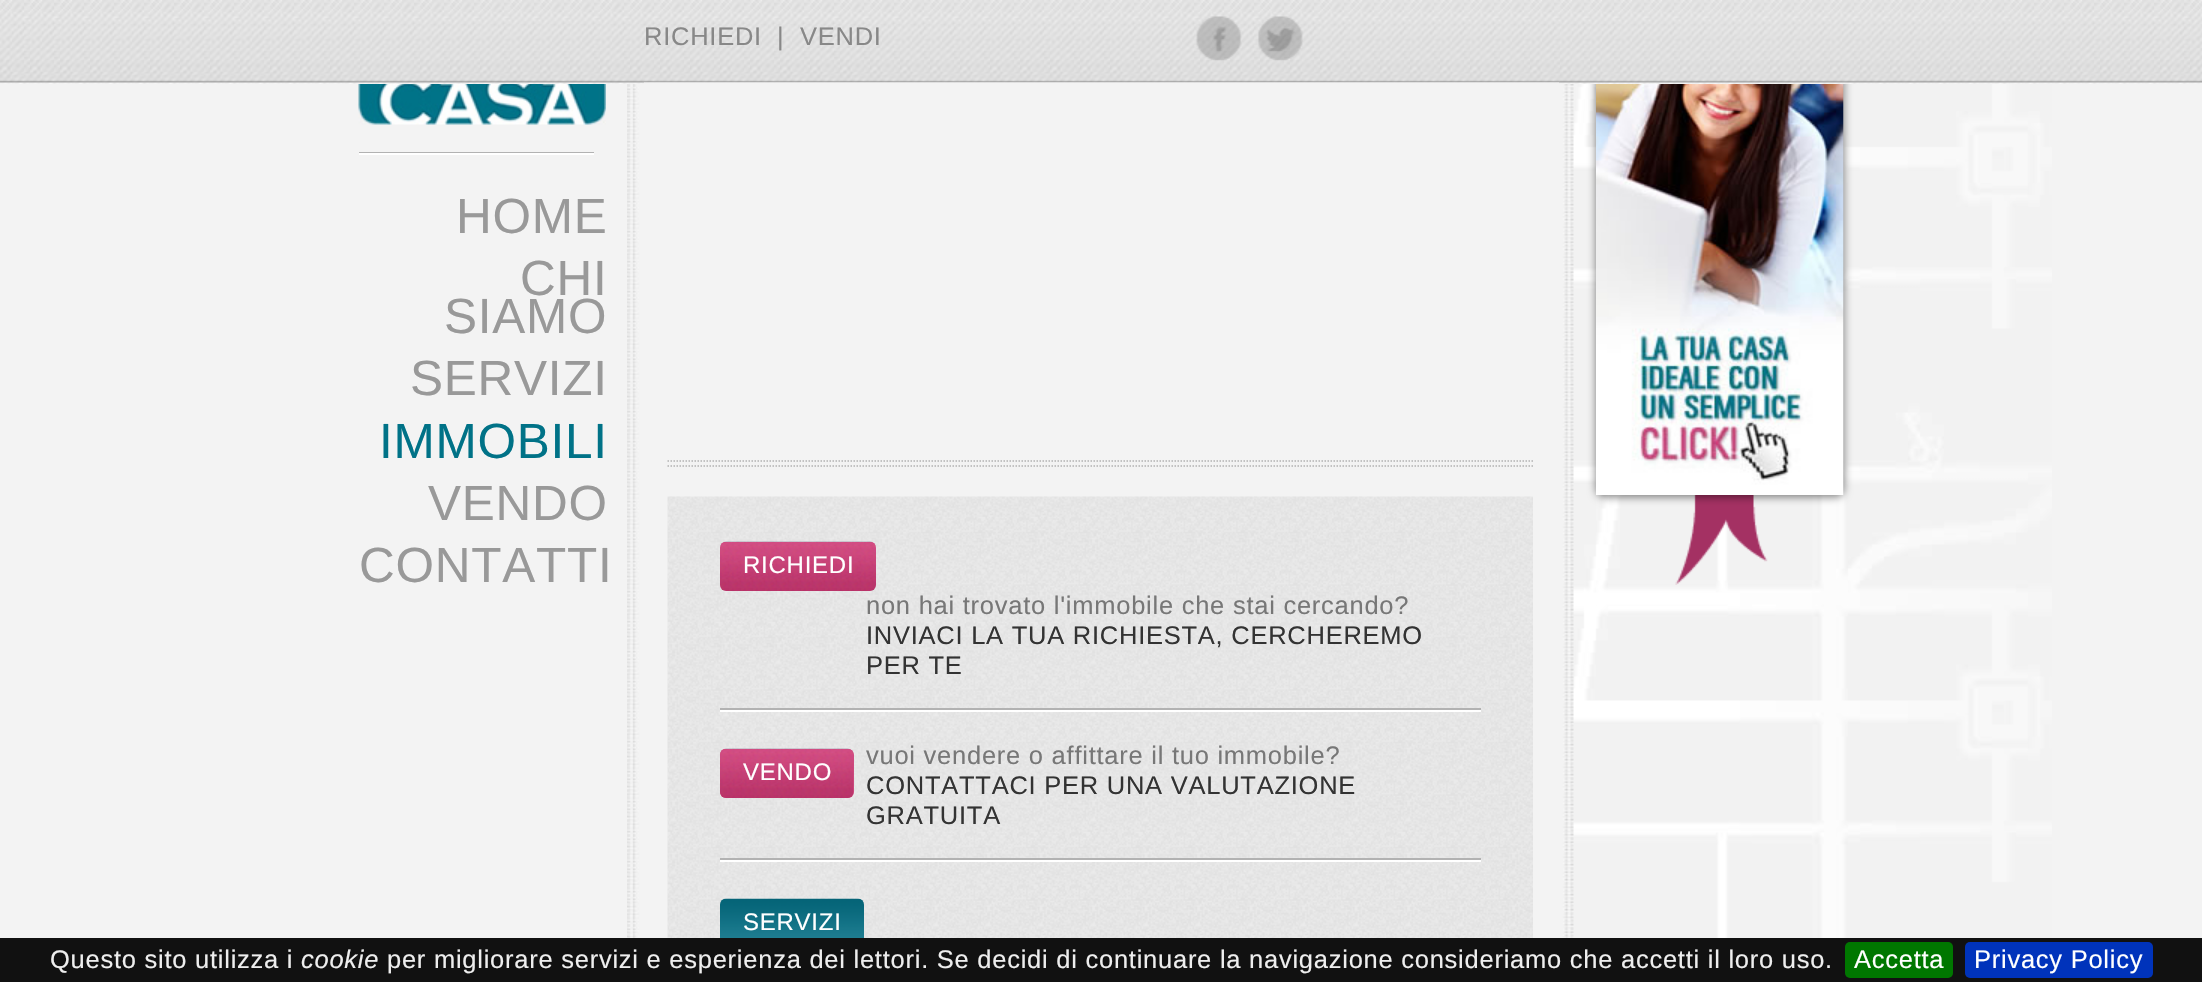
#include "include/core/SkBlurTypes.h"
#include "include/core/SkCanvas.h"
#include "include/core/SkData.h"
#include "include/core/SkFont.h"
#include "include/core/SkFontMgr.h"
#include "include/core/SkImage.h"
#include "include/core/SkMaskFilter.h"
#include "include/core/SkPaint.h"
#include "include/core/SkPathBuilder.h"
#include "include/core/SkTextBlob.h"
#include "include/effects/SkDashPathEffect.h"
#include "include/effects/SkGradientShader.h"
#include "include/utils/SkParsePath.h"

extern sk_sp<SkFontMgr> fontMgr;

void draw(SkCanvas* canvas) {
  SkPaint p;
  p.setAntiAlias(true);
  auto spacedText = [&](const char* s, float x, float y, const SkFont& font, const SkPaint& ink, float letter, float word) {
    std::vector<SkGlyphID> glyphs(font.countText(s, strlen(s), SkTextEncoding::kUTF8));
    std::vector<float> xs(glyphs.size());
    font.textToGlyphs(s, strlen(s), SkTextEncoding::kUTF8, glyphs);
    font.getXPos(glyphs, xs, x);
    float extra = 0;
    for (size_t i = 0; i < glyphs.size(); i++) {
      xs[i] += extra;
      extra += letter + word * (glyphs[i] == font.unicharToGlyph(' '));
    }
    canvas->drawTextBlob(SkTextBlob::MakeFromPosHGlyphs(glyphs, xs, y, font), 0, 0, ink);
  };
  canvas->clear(SkColorSetRGB(243, 243, 243));
  canvas->drawImageRect(SkImages::DeferredFromEncodedData(SkData::MakeFromFileName("images/1.png")), SkRect::MakeLTRB(1573, 84, 2052, 938), SkSamplingOptions());
  canvas->drawImageRect(SkImages::DeferredFromEncodedData(SkData::MakeFromFileName("images/7.png")), SkRect::MakeLTRB(1675, 495, 1768, 585), SkSamplingOptions());
  p.setColor(SkColorSetARGB(128, 0, 0, 0));
  p.setMaskFilter(SkMaskFilter::MakeBlur(kNormal_SkBlurStyle, 4.5f));
  canvas->drawRoundRect(SkRect::MakeLTRB(1596, -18, 1844, 497), 8, 8, p);
  p.setMaskFilter(nullptr);
  canvas->drawImageRect(SkImages::DeferredFromEncodedData(SkData::MakeFromFileName("images/2.png")), SkRect::MakeLTRB(0, 0, 2202, 84), SkSamplingOptions());
  canvas->drawImageRect(SkImages::DeferredFromEncodedData(SkData::MakeFromFileName("images/3.png")), SkRect::MakeLTRB(644, 82, 1559, 84), SkSamplingOptions());
  canvas->drawImageRect(SkImages::DeferredFromEncodedData(SkData::MakeFromFileName("images/4.png")), SkRect::MakeLTRB(1196, 16, 1242, 61), SkSamplingOptions());
  canvas->drawImageRect(SkImages::DeferredFromEncodedData(SkData::MakeFromFileName("images/5.png")), SkRect::MakeLTRB(1258, 16, 1303, 61), SkSamplingOptions());
  canvas->drawImageRect(SkImages::DeferredFromEncodedData(SkData::MakeFromFileName("images/6.png")), SkRect::MakeLTRB(358, 84, 606, 125), SkSamplingOptions());
  p.setColor(SkColorSetRGB(178, 178, 178));
  canvas->drawRect(SkRect::MakeLTRB(359, 152, 594, 153), p);
  p.setColor(SK_ColorWHITE);
  canvas->drawRect(SkRect::MakeLTRB(359, 153, 594, 155), p);
  canvas->drawImageRect(SkImages::DeferredFromEncodedData(SkData::MakeFromFileName("images/8.png")), SkRect::MakeLTRB(1596, 84, 1844, 495), SkSamplingOptions());
  canvas->drawImageRect(SkImages::DeferredFromEncodedData(SkData::MakeFromFileName("images/9.png")), SkRect::MakeLTRB(627, 84, 1574, 938), SkSamplingOptions());
  p.setStyle(SkPaint::kStroke_Style);
  p.setStrokeWidth(1.5f);
  p.setColor(SkColorSetRGB(178, 178, 178));
  p.setPathEffect(SkDashPathEffect::Make({{1.5f, 1.5f}}, 0));
  canvas->drawPath(SkPathBuilder().moveTo(667.5f, 461).lineTo(1533, 461).detach(), p);
  p.setPathEffect(nullptr);
  p.setPathEffect(SkDashPathEffect::Make({{1.5f, 1.5f}}, 0));
  canvas->drawPath(SkPathBuilder().moveTo(667.5f, 466).lineTo(1533, 466).detach(), p);
  p.setPathEffect(nullptr);
  canvas->drawImageRect(SkImages::DeferredFromEncodedData(SkData::MakeFromFileName("images/10.png")), SkRect::MakeLTRB(667, 496, 1533, 938), SkSamplingOptions());
  canvas->drawImageRect(SkImages::DeferredFromEncodedData(SkData::MakeFromFileName("images/11.png")), SkRect::MakeLTRB(720, 541, 876, 591), SkSamplingOptions());
  p.setStyle(SkPaint::kFill_Style);
  canvas->drawRect(SkRect::MakeLTRB(720, 708, 1481, 710), p);
  p.setColor(SK_ColorWHITE);
  canvas->drawRect(SkRect::MakeLTRB(720, 710, 1481, 712), p);
  p.setColor(SkColorSetRGB(207, 74, 127));
  canvas->drawRoundRect(SkRect::MakeLTRB(720, 749, 854, 798), 6, 6, p);
  canvas->drawImageRect(SkImages::DeferredFromEncodedData(SkData::MakeFromFileName("images/12.png")), SkRect::MakeLTRB(720, 748, 854, 798), SkSamplingOptions());
  p.setColor(SkColorSetRGB(178, 178, 178));
  canvas->drawRect(SkRect::MakeLTRB(720, 858, 1481, 860), p);
  p.setColor(SK_ColorWHITE);
  canvas->drawRect(SkRect::MakeLTRB(720, 860, 1481, 862), p);
  canvas->drawImageRect(SkImages::DeferredFromEncodedData(SkData::MakeFromFileName("images/13.png")), SkRect::MakeLTRB(720, 898, 864, 938), SkSamplingOptions());
  p.setColor(SkColorSetRGB(17, 17, 17));
  canvas->drawRect(SkRect::MakeLTRB(0, 938, 2202, 982), p);
  p.setColor(SkColorSetRGB(0, 119, 0));
  canvas->drawRoundRect(SkRect::MakeLTRB(1845, 942, 1953, 978), 5, 5, p);
  p.setColor(SkColorSetRGB(0, 51, 187));
  canvas->drawRoundRect(SkRect::MakeLTRB(1965, 942, 2153, 978), 5, 5, p);
  SkFont font1(fontMgr->matchFamilyStyle("Liberation Sans", SkFontStyle::Normal()), 25.5f);
  font1.setSubpixel(true);
  p.setColor(SkColorSetRGB(136, 136, 136));
  spacedText("RICHIEDI", 644, 45, font1, p, 0.75f, 0);
  spacedText("|", 777, 45, font1, p, 0.75f, 0);
  spacedText("VENDI", 800, 45, font1, p, 0.75f, 0);
  SkFont font2(fontMgr->matchFamilyStyle("Liberation Sans", SkFontStyle::Normal()), 49.5f);
  font2.setSubpixel(true);
  p.setColor(SkColorSetRGB(153, 153, 153));
  spacedText("HOME", 456, 233, font2, p, 0.75f, 0);
  spacedText("CHI", 520, 295, font2, p, 0.75f, 0);
  spacedText("SIAMO", 444, 333, font2, p, 0.75f, 0);
  spacedText("SERVIZI", 410, 395, font2, p, 0.75f, 0);
  p.setColor(SkColorSetRGB(0, 114, 135));
  spacedText("IMMOBILI", 379, 458, font2, p, 0.75f, 0);
  p.setColor(SkColorSetRGB(153, 153, 153));
  spacedText("VENDO", 428, 520, font2, p, 0.75f, 0);
  spacedText("CONTATTI", 359, 582, font2, p, 0.75f, 0);
  SkFont font3(fontMgr->matchFamilyStyle("Liberation Sans", SkFontStyle::Normal()), 24);
  font3.setSubpixel(true);
  p.setColor(SK_ColorWHITE);
  spacedText("RICHIEDI", 743, 573, font3, p, 0.75f, 0);
  p.setColor(SkColorSetRGB(119, 119, 119));
  spacedText("non hai trovato l'immobile che stai cercando?", 866, 614, font1, p, 0.75f, 0);
  p.setColor(SkColorSetRGB(51, 51, 51));
  spacedText("INVIACI LA TUA RICHIESTA, CERCHEREMO", 866, 644, font1, p, 0.75f, 0);
  spacedText("PER TE", 866, 674, font1, p, 0.75f, 0);
  p.setColor(SK_ColorWHITE);
  spacedText("VENDO", 743, 780, font3, p, 0.75f, 0);
  p.setColor(SkColorSetRGB(119, 119, 119));
  spacedText("vuoi vendere o affittare il tuo immobile?", 866, 764, font1, p, 0.75f, 0);
  p.setColor(SkColorSetRGB(51, 51, 51));
  spacedText("CONTATTACI PER UNA VALUTAZIONE", 866, 794, font1, p, 0.75f, 0);
  spacedText("GRATUITA", 866, 824, font1, p, 0.75f, 0);
  p.setColor(SK_ColorWHITE);
  spacedText("SERVIZI", 743, 930, font3, p, 0.75f, 0);
  p.setColor(SkColorSetRGB(238, 238, 238));
  spacedText("Questo sito utilizza i", 50, 968, font1, p, 0.75f, 0);
  SkFont font4(fontMgr->matchFamilyStyle("Liberation Sans", SkFontStyle::Italic()), 25.5f);
  font4.setSubpixel(true);
  spacedText("cookie", 301, 968, font4, p, 0.75f, 0);
  spacedText("per migliorare servizi e esperienza dei lettori. Se decidi di continuare la navigazione consideriamo che accetti il loro uso.", 387, 968, font1, p, 0.75f, 0);
  p.setColor(SK_ColorWHITE);
  spacedText("Accetta", 1854, 968, font1, p, 0.75f, 0);
  spacedText("Privacy Policy", 1974, 968, font1, p, 0.75f, 0);
}
